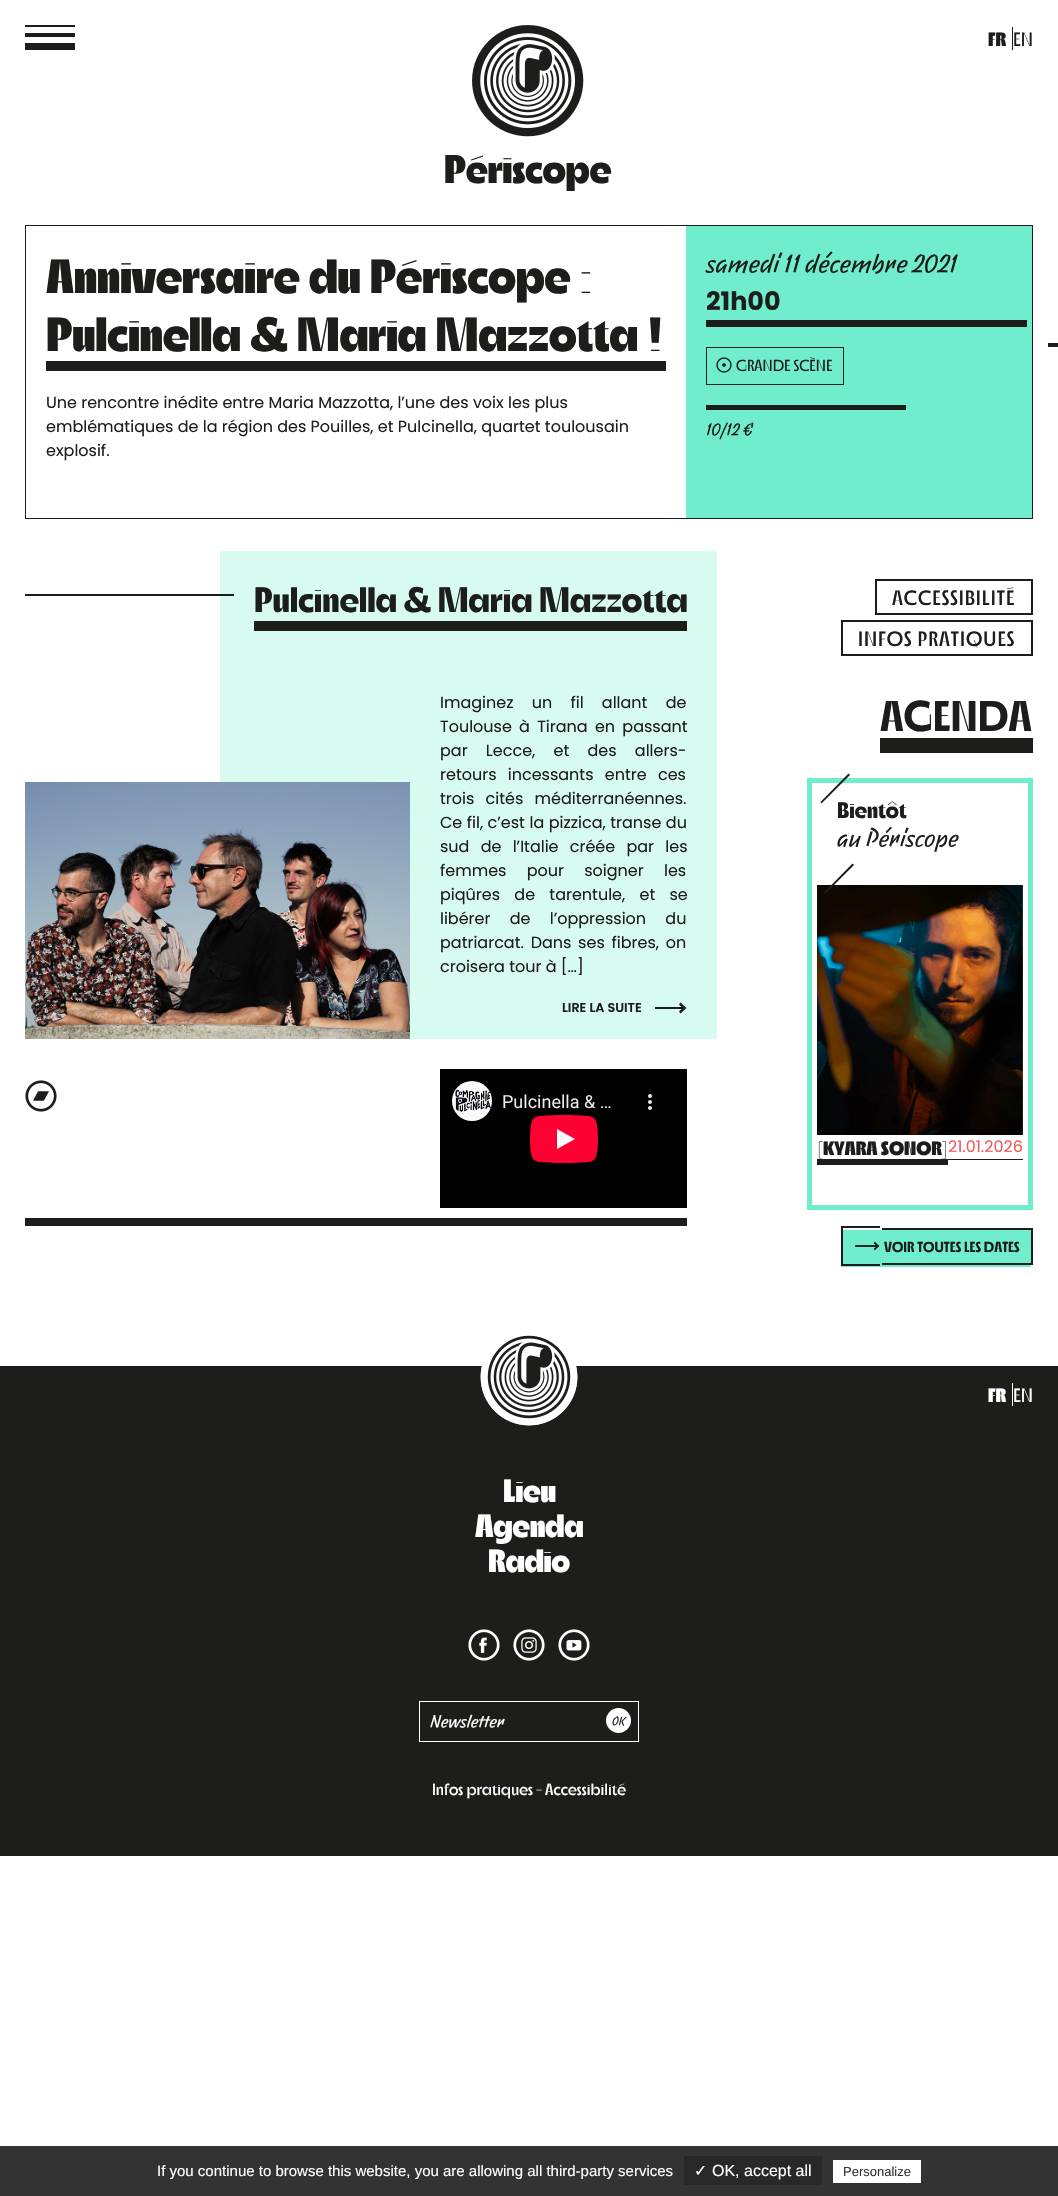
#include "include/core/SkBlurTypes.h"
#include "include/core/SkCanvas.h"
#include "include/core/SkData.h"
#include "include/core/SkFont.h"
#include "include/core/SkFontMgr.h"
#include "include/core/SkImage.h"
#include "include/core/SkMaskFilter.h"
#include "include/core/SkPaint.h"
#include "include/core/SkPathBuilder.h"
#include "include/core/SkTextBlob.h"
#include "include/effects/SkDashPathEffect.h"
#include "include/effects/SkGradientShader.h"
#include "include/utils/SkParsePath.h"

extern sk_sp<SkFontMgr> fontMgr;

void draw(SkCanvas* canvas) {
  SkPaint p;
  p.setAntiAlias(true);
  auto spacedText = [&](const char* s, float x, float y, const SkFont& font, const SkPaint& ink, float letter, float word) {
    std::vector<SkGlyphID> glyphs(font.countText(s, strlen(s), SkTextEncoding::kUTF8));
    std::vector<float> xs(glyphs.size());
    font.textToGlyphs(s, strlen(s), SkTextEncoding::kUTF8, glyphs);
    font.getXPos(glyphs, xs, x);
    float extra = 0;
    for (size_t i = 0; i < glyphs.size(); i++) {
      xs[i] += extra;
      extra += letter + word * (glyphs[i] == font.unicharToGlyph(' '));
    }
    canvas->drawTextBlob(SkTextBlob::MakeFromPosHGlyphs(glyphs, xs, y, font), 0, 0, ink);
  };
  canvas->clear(SK_ColorWHITE);
  p.setColor(SkColorSetRGB(29, 29, 27));
  canvas->drawRect(SkRect::MakeLTRB(25, 25, 75, 27), p);
  canvas->drawRect(SkRect::MakeLTRB(25, 33, 75, 37), p);
  canvas->drawRect(SkRect::MakeLTRB(25, 43, 75, 50), p);
  canvas->drawRect(SkRect::MakeLTRB(1012, 27, 1013, 50), p);
  canvas->drawImageRect(SkImages::DeferredFromEncodedData(SkData::MakeFromFileName("images/1.png")), SkRect::MakeLTRB(472, 25, 584, 137), SkSamplingOptions());
  p.setStyle(SkPaint::kStroke_Style);
  p.setStrokeWidth(1);
  canvas->drawRect(SkRect::MakeLTRB(25.5f, 225.5f, 1032.5f, 518.5f), p);
  p.setStyle(SkPaint::kFill_Style);
  canvas->drawRect(SkRect::MakeLTRB(46, 361, 666, 371), p);
  p.setColor(SkColorSetRGB(111, 237, 205));
  canvas->drawRect(SkRect::MakeLTRB(686, 226, 1032, 518), p);
  p.setColor(SkColorSetRGB(29, 29, 27));
  canvas->drawRect(SkRect::MakeLTRB(706, 320, 1027, 327), p);
  p.setStyle(SkPaint::kStroke_Style);
  canvas->drawRect(SkRect::MakeLTRB(706.5f, 347.5f, 843.5f, 384.5f), p);
  canvas->drawImageRect(SkImages::DeferredFromEncodedData(SkData::MakeFromFileName("images/2.png")), SkRect::MakeLTRB(716, 357, 732, 373), SkSamplingOptions());
  p.setStyle(SkPaint::kFill_Style);
  canvas->drawRect(SkRect::MakeLTRB(706, 405, 906, 410), p);
  canvas->drawRect(SkRect::MakeLTRB(1048, 343, 1058, 347), p);
  canvas->drawRect(SkRect::MakeLTRB(25, 1218, 687, 1226), p);
  p.setColor(SkColorSetRGB(215, 250, 241));
  canvas->drawRect(SkRect::MakeLTRB(220, 551, 717, 1039), p);
  p.setColor(SkColorSetRGB(29, 29, 27));
  canvas->drawRect(SkRect::MakeLTRB(25, 594, 234, 596), p);
  canvas->drawRect(SkRect::MakeLTRB(254, 621, 687, 631), p);
  canvas->drawImageRect(SkImages::DeferredFromEncodedData(SkData::MakeFromFileName("images/3.png")), SkRect::MakeLTRB(25, 782, 410, 1039), SkSamplingOptions());
  canvas->drawPath(SkPathBuilder().moveTo(680.5f, 1002.5f).lineTo(679, 1004.5f).lineTo(681.5f, 1007).lineTo(655, 1007).lineTo(655, 1009).lineTo(681.5f, 1009).lineTo(679, 1011.5f).lineTo(680.5f, 1013.5f).lineTo(686.5f, 1008).close().detach(), p);
  canvas->drawImageRect(SkImages::DeferredFromEncodedData(SkData::MakeFromFileName("images/4.png")), SkRect::MakeLTRB(25, 1080, 57, 1112), SkSamplingOptions());
  canvas->drawImageRect(SkImages::DeferredFromEncodedData(SkData::MakeFromFileName("images/5.png")), SkRect::MakeLTRB(440, 1069, 687, 1208), SkSamplingOptions());
  p.setStyle(SkPaint::kStroke_Style);
  p.setStrokeWidth(2);
  canvas->drawRect(SkRect::MakeLTRB(876, 580, 1032, 614), p);
  canvas->drawRect(SkRect::MakeLTRB(842, 621, 1032, 655), p);
  p.setStyle(SkPaint::kFill_Style);
  canvas->drawRect(SkRect::MakeLTRB(880, 738, 1033, 753), p);
  p.setStyle(SkPaint::kStroke_Style);
  p.setStrokeWidth(5);
  p.setColor(SkColorSetRGB(111, 237, 205));
  canvas->drawRect(SkRect::MakeLTRB(809.5f, 780.5f, 1030.5f, 1207.5f), p);
  p.setStyle(SkPaint::kFill_Style);
  p.setColor(SkColorSetRGB(29, 29, 27));
  canvas->drawPath(SkPathBuilder().moveTo(820.5f, 802).lineTo(848.5f, 773.5f).lineTo(850, 775).lineTo(821.5f, 803.5f).close().detach(), p);
  canvas->drawImageRect(SkImages::DeferredFromEncodedData(SkData::MakeFromFileName("images/6.png")), SkRect::MakeLTRB(817, 885, 1023, 1135), SkSamplingOptions());
  canvas->drawPath(SkPathBuilder().moveTo(824.5f, 892).lineTo(852.5f, 863.5f).lineTo(854, 865).lineTo(825.5f, 893.5f).close().detach(), p);
  canvas->drawRect(SkRect::MakeLTRB(817, 1160, 948, 1165), p);
  canvas->drawRect(SkRect::MakeLTRB(817, 1159, 1023, 1160), p);
  p.setColor(SkColorSetRGB(111, 237, 205));
  canvas->drawRect(SkRect::MakeLTRB(841, 1230, 1031, 1267), p);
  p.setColor(SkColorSetRGB(29, 29, 27));
  canvas->drawRect(SkRect::MakeLTRB(841, 1226, 880, 1228), p);
  canvas->drawRect(SkRect::MakeLTRB(841, 1264, 880, 1266), p);
  canvas->drawRect(SkRect::MakeLTRB(841, 1226, 843, 1266), p);
  canvas->drawRect(SkRect::MakeLTRB(882, 1228, 1033, 1230), p);
  canvas->drawRect(SkRect::MakeLTRB(1031, 1228, 1033, 1265), p);
  canvas->drawRect(SkRect::MakeLTRB(882, 1263, 1033, 1265), p);
  canvas->drawImageRect(SkImages::DeferredFromEncodedData(SkData::MakeFromFileName("images/7.png")), SkRect::MakeLTRB(855, 1241, 880, 1251), SkSamplingOptions());
  canvas->drawRect(SkRect::MakeLTRB(0, 1366, 1058, 1856), p);
  p.setColor(SK_ColorWHITE);
  canvas->drawRect(SkRect::MakeLTRB(1012, 1383, 1013, 1406), p);
  canvas->drawImageRect(SkImages::DeferredFromEncodedData(SkData::MakeFromFileName("images/8.png")), SkRect::MakeLTRB(480, 1335, 578, 1426), SkSamplingOptions());
  canvas->drawImageRect(SkImages::DeferredFromEncodedData(SkData::MakeFromFileName("images/9.png")), SkRect::MakeLTRB(468, 1629, 500, 1661), SkSamplingOptions());
  canvas->drawImageRect(SkImages::DeferredFromEncodedData(SkData::MakeFromFileName("images/10.png")), SkRect::MakeLTRB(513, 1629, 545, 1661), SkSamplingOptions());
  canvas->drawImageRect(SkImages::DeferredFromEncodedData(SkData::MakeFromFileName("images/11.png")), SkRect::MakeLTRB(558, 1629, 590, 1661), SkSamplingOptions());
  p.setStyle(SkPaint::kStroke_Style);
  p.setStrokeWidth(1);
  canvas->drawRect(SkRect::MakeLTRB(419.5f, 1701.5f, 638.5f, 1741.5f), p);
  p.setStyle(SkPaint::kFill_Style);
  canvas->drawCircle(618.5f, 1720.5f, 12.5f, p);
  p.setColor(SkColorSetRGB(51, 51, 51));
  canvas->drawRect(SkRect::MakeLTRB(0, 2146, 1058, 2196), p);
  p.setColor(SkColorSetRGB(40, 40, 40));
  canvas->drawRect(SkRect::MakeLTRB(684, 2156, 822, 2185), p);
  p.setColor(SK_ColorWHITE);
  canvas->drawRect(SkRect::MakeLTRB(833, 2160, 921, 2183), p);
  SkFont font1(fontMgr->matchFamilyStyle("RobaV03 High", SkFontStyle(900, SkFontStyle::kNormal_Width, SkFontStyle::kUpright_Slant)), 19.25f);
  font1.setSubpixel(true);
  p.setColor(SkColorSetRGB(29, 29, 27));
  canvas->drawString("FR", 988, 46, font1, p);
  SkFont font2(fontMgr->matchFamilyStyle("RobaV03 High", SkFontStyle(300, SkFontStyle::kNormal_Width, SkFontStyle::kUpright_Slant)), 19.25f);
  font2.setSubpixel(true);
  canvas->drawString("EN", 1013, 46, font2, p);
  SkFont font3(fontMgr->matchFamilyStyle("RobaV03 High", SkFontStyle(900, SkFontStyle::kNormal_Width, SkFontStyle::kUpright_Slant)), 40);
  font3.setSubpixel(true);
  canvas->drawString("Périscope", 444, 183, font3, p);
  SkFont font4(fontMgr->matchFamilyStyle("RobaV03 High", SkFontStyle(900, SkFontStyle::kNormal_Width, SkFontStyle::kUpright_Slant)), 48);
  font4.setSubpixel(true);
  canvas->drawString("Anniversaire du Périscope :", 46, 293, font4, p);
  canvas->drawString("Pulcinella & Maria Mazzotta !", 46, 351, font4, p);
  SkFont font5(fontMgr->matchFamilyStyle("Poppins", SkFontStyle::Normal()), 16);
  font5.setSubpixel(true);
  canvas->drawString("Une rencontre inédite entre Maria Mazzotta, l’une des voix les plus", 46, 408, font5, p);
  canvas->drawString("emblématiques de la région des Pouilles, et Pulcinella, quartet toulousain", 46, 432, font5, p);
  canvas->drawString("explosif.", 46, 456, font5, p);
  SkFont font6(fontMgr->matchFamilyStyle("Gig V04", SkFontStyle::Normal()), 24);
  font6.setSubpixel(true);
  canvas->drawString("samedi 11 décembre 2021", 706, 272, font6, p);
  SkFont font7(fontMgr->matchFamilyStyle("Poppins", SkFontStyle::Bold()), 25.5f);
  font7.setSubpixel(true);
  canvas->drawString("21h00", 706, 310, font7, p);
  SkFont font8(fontMgr->matchFamilyStyle("RobaV03 High", SkFontStyle(300, SkFontStyle::kNormal_Width, SkFontStyle::kUpright_Slant)), 16);
  font8.setSubpixel(true);
  canvas->drawString("GRANDE SCÈNE", 736, 371, font8, p);
  SkFont font9(fontMgr->matchFamilyStyle("Gig V04", SkFontStyle::Normal()), 16);
  font9.setSubpixel(true);
  canvas->drawString("10/12 €", 706, 435, font9, p);
  SkFont font10(fontMgr->matchFamilyStyle("RobaV03 High", SkFontStyle::Bold()), 35.25f);
  font10.setSubpixel(true);
  canvas->drawString("Pulcinella & Maria Mazzotta", 254, 612, font10, p);
  spacedText("Imaginez un fil allant de", 440, 708, font5, p, 0, 14);
  spacedText("Toulouse à Tirana en passant", 440, 732, font5, p, 0, 3);
  spacedText("par Lecce, et des allers-", 440, 756, font5, p, 0, 14);
  spacedText("retours incessants entre ces", 440, 780, font5, p, 0, 7);
  spacedText("trois cités méditerranéennes.", 440, 804, font5, p, 0, 7);
  spacedText("Ce fil, c’est la pizzica, transe du", 440, 828, font5, p, 0, 0.25f);
  spacedText("sud de l’Italie créée par les", 440, 852, font5, p, 0, 7);
  spacedText("femmes pour soigner les", 440, 876, font5, p, 0, 16);
  spacedText("piqûres de tarentule, et se", 440, 900, font5, p, 0, 10);
  spacedText("libérer de l’oppression du", 440, 924, font5, p, 0, 15);
  spacedText("patriarcat. Dans ses fibres, on", 440, 948, font5, p, 0, 2.5f);
  canvas->drawString("croisera tour à […]", 440, 972, font5, p);
  SkFont font11(fontMgr->matchFamilyStyle("Poppins", SkFontStyle(600, SkFontStyle::kNormal_Width, SkFontStyle::kUpright_Slant)), 12.75f);
  font11.setSubpixel(true);
  canvas->drawString("LIRE LA SUITE", 562, 1012, font11, p);
  SkFont font12(fontMgr->matchFamilyStyle("RobaV03 High", SkFontStyle::Normal()), 20.75f);
  font12.setSubpixel(true);
  spacedText("ACCESSIBILITÉ", 892, 605, font12, p, 1, 0);
  spacedText("INFOS PRATIQUES", 858, 646, font12, p, 1, 0);
  SkFont font13(fontMgr->matchFamilyStyle("RobaV03 High", SkFontStyle(600, SkFontStyle::kNormal_Width, SkFontStyle::kUpright_Slant)), 43);
  font13.setSubpixel(true);
  canvas->drawString("AGENDA", 880, 731, font13, p);
  SkFont font14(fontMgr->matchFamilyStyle("RobaV03 High", SkFontStyle::Bold()), 22.5f);
  font14.setSubpixel(true);
  canvas->drawString("Bientôt", 837, 818, font14, p);
  SkFont font15(fontMgr->matchFamilyStyle("Gig V04", SkFontStyle::Normal()), 22.5f);
  font15.setSubpixel(true);
  canvas->drawString("au Périscope", 837, 846, font15, p);
  canvas->drawString("[KYARA SONOR]", 817, 1155, font1, p);
  p.setColor(SkColorSetRGB(238, 88, 87));
  canvas->drawString("21.01.2026", 948, 1152, font5, p);
  SkFont font16(fontMgr->matchFamilyStyle("RobaV03 High", SkFontStyle(600, SkFontStyle::kNormal_Width, SkFontStyle::kUpright_Slant)), 14.5f);
  font16.setSubpixel(true);
  p.setColor(SkColorSetRGB(29, 29, 27));
  canvas->drawString("VOIR TOUTES LES DATES", 884, 1252, font16, p);
  p.setColor(SK_ColorWHITE);
  canvas->drawString("FR", 988, 1402, font1, p);
  canvas->drawString("EN", 1013, 1402, font2, p);
  SkFont font17(fontMgr->matchFamilyStyle("RobaV03 High", SkFontStyle(900, SkFontStyle::kNormal_Width, SkFontStyle::kUpright_Slant)), 32);
  font17.setSubpixel(true);
  canvas->drawString("Lieu", 503, 1502, font17, p);
  canvas->drawString("Agenda", 475, 1537, font17, p);
  canvas->drawString("Radio", 488, 1572, font17, p);
  canvas->drawString("Newsletter", 430, 1727, font9, p);
  SkFont font18(fontMgr->matchFamilyStyle("Gig V04", SkFontStyle::Normal()), 11);
  font18.setSubpixel(true);
  p.setColor(SkColorSetRGB(29, 29, 27));
  canvas->drawString("OK", 612, 1725, font18, p);
  SkFont font19(fontMgr->matchFamilyStyle("RobaV03 High", SkFontStyle::Normal()), 16);
  font19.setSubpixel(true);
  p.setColor(SK_ColorWHITE);
  canvas->drawString("Infos pratiques", 432, 1795, font19, p);
  SkFont font20(fontMgr->matchFamilyStyle("RobaV03 High", SkFontStyle(600, SkFontStyle::kNormal_Width, SkFontStyle::kUpright_Slant)), 16);
  font20.setSubpixel(true);
  canvas->drawString("-", 536, 1795, font20, p);
  canvas->drawString("Accessibilité", 545, 1795, font19, p);
  SkFont font21(fontMgr->matchFamilyStyle("Liberation Sans", SkFontStyle::Normal()), 15);
  font21.setSubpixel(true);
  canvas->drawString("If you continue to browse this website, you are allowing all third-party services", 157, 2176, font21, p);
  SkFont font22(fontMgr->matchFamilyStyle("DejaVu Sans", SkFontStyle::Normal()), 16);
  font22.setSubpixel(true);
  canvas->drawString("✓", 694, 2176, font22, p);
  SkFont font23(fontMgr->matchFamilyStyle("Liberation Sans", SkFontStyle::Normal()), 16);
  font23.setSubpixel(true);
  canvas->drawString("OK, accept all", 712, 2176, font23, p);
  SkFont font24(fontMgr->matchFamilyStyle("Liberation Sans", SkFontStyle::Normal()), 13);
  font24.setSubpixel(true);
  p.setColor(SkColorSetRGB(51, 51, 51));
  canvas->drawString("Personalize", 843, 2176, font24, p);
}
